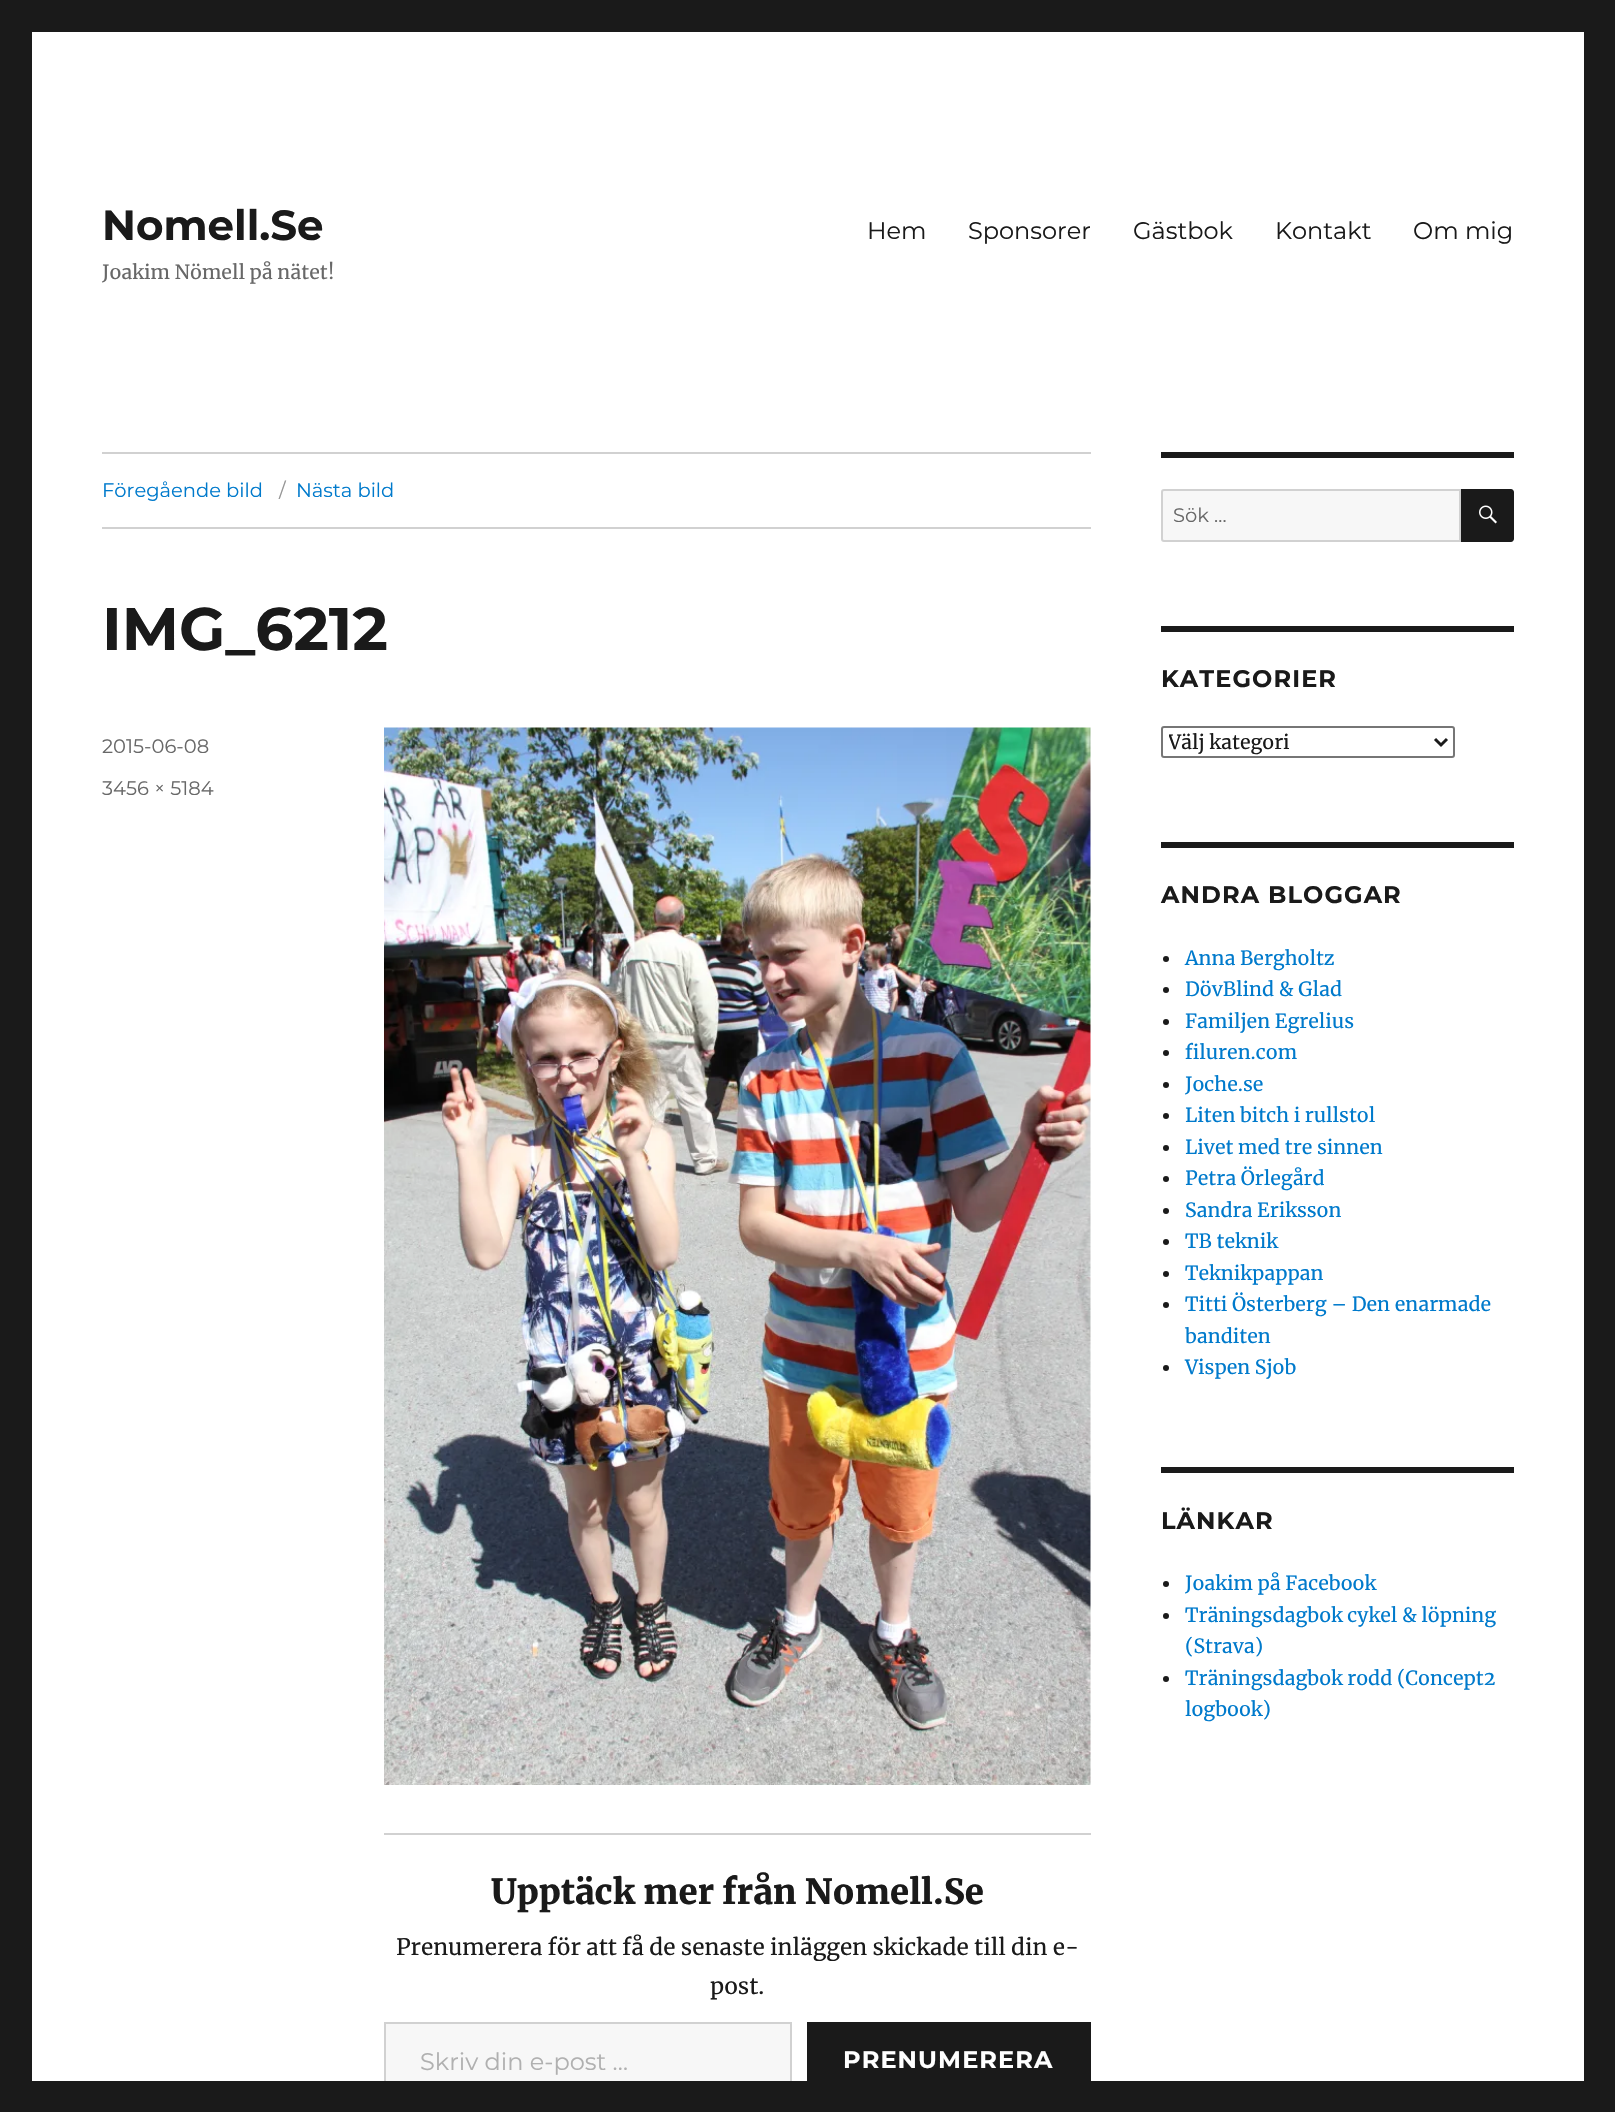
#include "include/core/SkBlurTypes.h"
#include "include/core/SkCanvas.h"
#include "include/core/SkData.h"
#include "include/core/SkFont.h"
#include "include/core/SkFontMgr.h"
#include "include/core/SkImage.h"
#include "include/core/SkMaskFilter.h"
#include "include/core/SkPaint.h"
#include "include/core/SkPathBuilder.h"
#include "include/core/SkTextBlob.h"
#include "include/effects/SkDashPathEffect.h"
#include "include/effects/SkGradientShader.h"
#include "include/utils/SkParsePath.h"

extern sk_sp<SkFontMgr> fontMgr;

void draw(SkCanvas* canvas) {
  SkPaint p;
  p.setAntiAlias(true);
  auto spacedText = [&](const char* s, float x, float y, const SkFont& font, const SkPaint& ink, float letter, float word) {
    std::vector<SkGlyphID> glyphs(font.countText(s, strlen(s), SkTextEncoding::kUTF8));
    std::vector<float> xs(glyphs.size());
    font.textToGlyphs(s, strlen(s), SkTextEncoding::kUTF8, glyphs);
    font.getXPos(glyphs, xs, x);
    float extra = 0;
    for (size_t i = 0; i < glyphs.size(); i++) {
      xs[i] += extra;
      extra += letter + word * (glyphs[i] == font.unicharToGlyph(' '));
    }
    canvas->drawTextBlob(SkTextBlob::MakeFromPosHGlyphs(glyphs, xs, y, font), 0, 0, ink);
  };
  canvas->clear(SkColorSetRGB(26, 26, 26));
  p.setColor(SK_ColorWHITE);
  canvas->drawRect(SkRect::MakeLTRB(32, 32, 1584, 2081), p);
  p.setColor(SkColorSetRGB(209, 209, 209));
  canvas->drawRect(SkRect::MakeLTRB(102, 452, 1091, 454), p);
  canvas->drawRect(SkRect::MakeLTRB(102, 527, 1091, 529), p);
  canvas->drawImageRect(SkImages::DeferredFromEncodedData(SkData::MakeFromFileName("images/1.png")), SkRect::MakeLTRB(384, 727, 1091, 1785), SkSamplingOptions());
  canvas->drawRect(SkRect::MakeLTRB(384, 1833, 1091, 1835), p);
  p.setColor(SkColorSetRGB(247, 247, 247));
  canvas->drawRect(SkRect::MakeLTRB(386, 2024, 790, 2081), p);
  p.setStyle(SkPaint::kStroke_Style);
  p.setStrokeWidth(2);
  p.setColor(SkColorSetRGB(209, 209, 209));
  canvas->drawRect(SkRect::MakeLTRB(385, 2023, 791, 2099), p);
  p.setStyle(SkPaint::kFill_Style);
  p.setColor(SkColorSetRGB(26, 26, 26));
  canvas->drawRect(SkRect::MakeLTRB(807, 2022, 1091, 2081), p);
  canvas->drawRect(SkRect::MakeLTRB(1161, 452, 1514, 458), p);
  p.setColor(SkColorSetRGB(247, 247, 247));
  canvas->drawPath(SkPathBuilder().moveTo(1164, 490).lineTo(1460, 490).lineTo(1460, 541).lineTo(1164, 541).cubicTo(1163, 541, 1162, 540, 1162, 539).lineTo(1162, 492).cubicTo(1162, 491, 1163, 490, 1164, 490).close().detach(), p);
  p.setStyle(SkPaint::kStroke_Style);
  p.setColor(SkColorSetRGB(209, 209, 209));
  canvas->drawPath(SkPathBuilder().moveTo(1164, 490).lineTo(1460, 490).lineTo(1460, 541).lineTo(1164, 541).cubicTo(1163, 541, 1162, 540, 1162, 539).lineTo(1162, 492).cubicTo(1162, 491, 1163, 490, 1164, 490).close().detach(), p);
  p.setStyle(SkPaint::kFill_Style);
  p.setColor(SkColorSetRGB(26, 26, 26));
  canvas->drawPath(SkPathBuilder().moveTo(1461, 489).lineTo(1511, 489).cubicTo(1512.5f, 489, 1514, 490.5f, 1514, 492).lineTo(1514, 539).cubicTo(1514, 540.5f, 1512.5f, 542, 1511, 542).lineTo(1461, 542).close().detach(), p);
  canvas->drawImageRect(SkImages::DeferredFromEncodedData(SkData::MakeFromFileName("images/2.png")), SkRect::MakeLTRB(1479, 505, 1497, 524), SkSamplingOptions());
  canvas->drawRect(SkRect::MakeLTRB(1161, 626, 1514, 632), p);
  p.setStyle(SkPaint::kStroke_Style);
  p.setColor(SkColorSetRGB(118, 118, 118));
  canvas->drawRoundRect(SkRect::MakeLTRB(1162, 727, 1454, 757), 2, 2, p);
  p.setStrokeWidth(3);
  p.setColor(SkColorSetRGB(26, 26, 26));
  canvas->drawPath(SkPathBuilder().moveTo(1435, 739).lineTo(1441, 745).lineTo(1447, 739).detach(), p);
  p.setStyle(SkPaint::kFill_Style);
  canvas->drawRect(SkRect::MakeLTRB(1161, 842, 1514, 848), p);
  canvas->drawCircle(1166, 959, 3, p);
  canvas->drawCircle(1166, 990, 3, p);
  canvas->drawCircle(1166, 1022, 3, p);
  canvas->drawCircle(1166, 1053, 3, p);
  canvas->drawCircle(1166, 1085, 3, p);
  canvas->drawCircle(1166, 1116, 3, p);
  canvas->drawCircle(1166, 1148, 3, p);
  canvas->drawCircle(1166, 1179, 3, p);
  canvas->drawCircle(1166, 1211, 3, p);
  canvas->drawCircle(1166, 1242, 3, p);
  canvas->drawCircle(1166, 1274, 3, p);
  canvas->drawCircle(1166, 1305, 3, p);
  canvas->drawCircle(1166, 1368, 3, p);
  canvas->drawRect(SkRect::MakeLTRB(1161, 1467, 1514, 1473), p);
  canvas->drawCircle(1166, 1584, 3, p);
  canvas->drawCircle(1166, 1616, 3, p);
  canvas->drawCircle(1166, 1679, 3, p);
  canvas->drawRect(SkRect::MakeLTRB(384, 2081, 792, 2100), p);
  SkFont font1(fontMgr->matchFamilyStyle("Montserrat", SkFontStyle(100, SkFontStyle::kNormal_Width, SkFontStyle::kUpright_Slant)), 42);
  font1.setSubpixel(true);
  canvas->drawString("Nomell.Se", 102, 240, font1, p);
  SkFont font2(fontMgr->matchFamilyStyle("Merriweather", SkFontStyle::Normal()), 19.5f);
  font2.setSubpixel(true);
  p.setColor(SkColorSetRGB(104, 104, 104));
  canvas->drawString("Joakim Nömell på nätet!", 102, 279, font2, p);
  SkFont font3(fontMgr->matchFamilyStyle("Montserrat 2", SkFontStyle(100, SkFontStyle::kNormal_Width, SkFontStyle::kUpright_Slant)), 24);
  font3.setSubpixel(true);
  p.setColor(SkColorSetRGB(26, 26, 26));
  canvas->drawString("Hem", 867, 239, font3, p);
  canvas->drawString("Sponsorer", 968, 239, font3, p);
  canvas->drawString("Gästbok", 1133, 239, font3, p);
  canvas->drawString("Kontakt", 1275, 239, font3, p);
  canvas->drawString("Om mig", 1413, 239, font3, p);
  SkFont font4(fontMgr->matchFamilyStyle("Montserrat 2", SkFontStyle(100, SkFontStyle::kNormal_Width, SkFontStyle::kUpright_Slant)), 19.5f);
  font4.setSubpixel(true);
  p.setColor(SkColorSetRGB(0, 122, 204));
  canvas->drawString("Föregående bild", 102, 497, font4, p);
  p.setColor(SkColorSetRGB(149, 149, 149));
  canvas->drawString("/", 279, 497, font4, p);
  p.setColor(SkColorSetRGB(0, 122, 204));
  canvas->drawString("Nästa bild", 296, 497, font4, p);
  SkFont font5(fontMgr->matchFamilyStyle("Montserrat", SkFontStyle(100, SkFontStyle::kNormal_Width, SkFontStyle::kUpright_Slant)), 60);
  font5.setSubpixel(true);
  p.setColor(SkColorSetRGB(26, 26, 26));
  canvas->drawString("IMG_6212", 102, 650, font5, p);
  p.setColor(SkColorSetRGB(104, 104, 104));
  canvas->drawString("2015-06-08", 102, 753, font4, p);
  canvas->drawString("3456 × 5184", 102, 795, font4, p);
  SkFont font6(fontMgr->matchFamilyStyle("Merriweather", SkFontStyle(900, SkFontStyle::kNormal_Width, SkFontStyle::kUpright_Slant)), 34.5f);
  font6.setSubpixel(true);
  p.setColor(SkColorSetRGB(26, 26, 26));
  canvas->drawString("Upptäck mer från Nomell.Se", 491, 1904, font6, p);
  SkFont font7(fontMgr->matchFamilyStyle("Merriweather", SkFontStyle::Normal()), 22.5f);
  font7.setSubpixel(true);
  canvas->drawString("Prenumerera för att få de senaste inläggen skickade till din e-", 396, 1955, font7, p);
  canvas->drawString("post.", 710, 1994, font7, p);
  p.setColor(SkColorSetRGB(176, 176, 176));
  canvas->drawString("Skriv din e-post …", 420, 2070, font3, p);
  SkFont font8(fontMgr->matchFamilyStyle("Montserrat", SkFontStyle(100, SkFontStyle::kNormal_Width, SkFontStyle::kUpright_Slant)), 24);
  font8.setSubpixel(true);
  p.setColor(SK_ColorWHITE);
  spacedText("PRENUMERERA", 843, 2068, font8, p, 1.1f, 0);
  p.setColor(SkColorSetRGB(104, 104, 104));
  canvas->drawString("Sök …", 1173, 522, font4, p);
  p.setColor(SkColorSetRGB(26, 26, 26));
  spacedText("KATEGORIER", 1161, 687, font8, p, 1.1f, 0);
  canvas->save();
  canvas->clipRect(SkRect::MakeLTRB(1169, 728, 1430, 756));
  canvas->drawString("Välj kategori", 1168, 749, font2, p);
  canvas->restore();
  spacedText("ANDRA BLOGGAR", 1161, 903, font8, p, 1.1f, 0);
  p.setColor(SkColorSetRGB(0, 122, 204));
  canvas->drawString("Anna Bergholtz", 1185, 965, font2, p);
  canvas->drawString("DövBlind & Glad", 1185, 996, font2, p);
  canvas->drawString("Familjen Egrelius", 1185, 1028, font2, p);
  canvas->drawString("filuren.com", 1185, 1059, font2, p);
  canvas->drawString("Joche.se", 1185, 1091, font2, p);
  canvas->drawString("Liten bitch i rullstol", 1185, 1122, font2, p);
  canvas->drawString("Livet med tre sinnen", 1185, 1154, font2, p);
  canvas->drawString("Petra Örlegård", 1185, 1185, font2, p);
  canvas->drawString("Sandra Eriksson", 1185, 1217, font2, p);
  canvas->drawString("TB teknik", 1185, 1248, font2, p);
  canvas->drawString("Teknikpappan", 1185, 1280, font2, p);
  canvas->drawString("Titti Österberg – Den enarmade", 1185, 1311, font2, p);
  canvas->drawString("banditen", 1185, 1343, font2, p);
  canvas->drawString("Vispen Sjob", 1185, 1374, font2, p);
  p.setColor(SkColorSetRGB(26, 26, 26));
  spacedText("LÄNKAR", 1161, 1529, font8, p, 1.1f, 0);
  p.setColor(SkColorSetRGB(0, 122, 204));
  canvas->drawString("Joakim på Facebook", 1185, 1590, font2, p);
  canvas->drawString("Träningsdagbok cykel & löpning", 1185, 1622, font2, p);
  canvas->drawString("(Strava)", 1185, 1653, font2, p);
  canvas->drawString("Träningsdagbok rodd (Concept2", 1185, 1685, font2, p);
  canvas->drawString("logbook)", 1185, 1716, font2, p);
}
